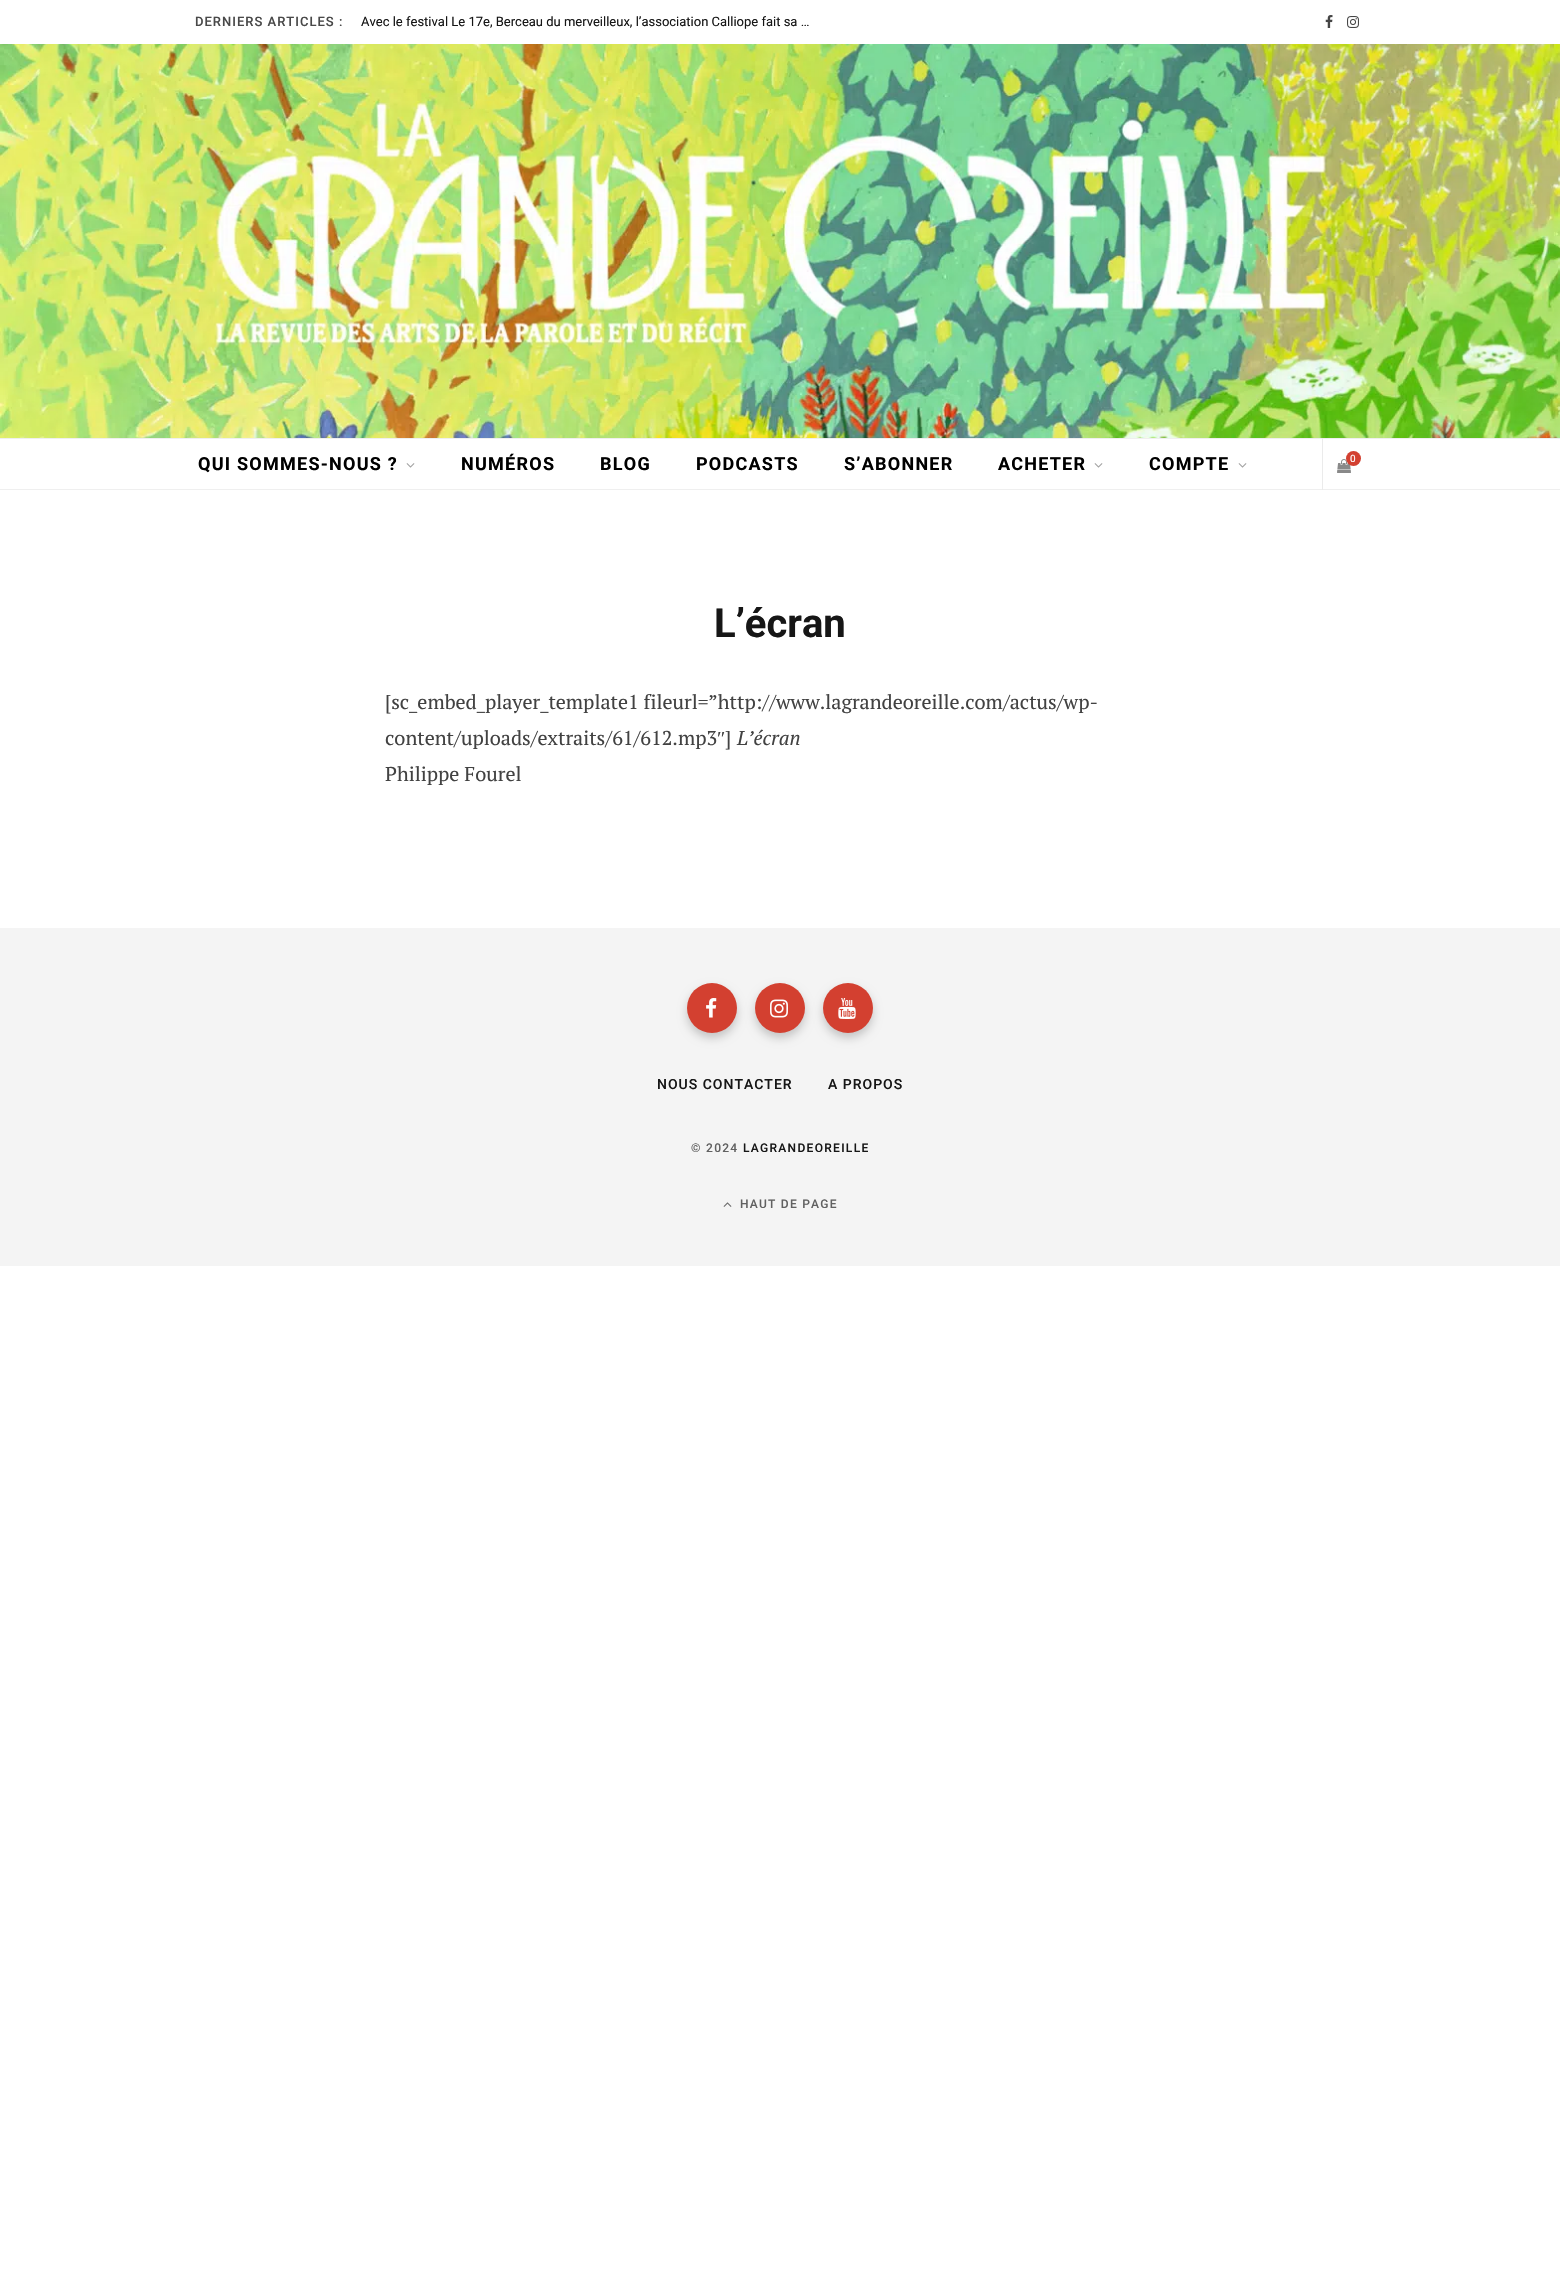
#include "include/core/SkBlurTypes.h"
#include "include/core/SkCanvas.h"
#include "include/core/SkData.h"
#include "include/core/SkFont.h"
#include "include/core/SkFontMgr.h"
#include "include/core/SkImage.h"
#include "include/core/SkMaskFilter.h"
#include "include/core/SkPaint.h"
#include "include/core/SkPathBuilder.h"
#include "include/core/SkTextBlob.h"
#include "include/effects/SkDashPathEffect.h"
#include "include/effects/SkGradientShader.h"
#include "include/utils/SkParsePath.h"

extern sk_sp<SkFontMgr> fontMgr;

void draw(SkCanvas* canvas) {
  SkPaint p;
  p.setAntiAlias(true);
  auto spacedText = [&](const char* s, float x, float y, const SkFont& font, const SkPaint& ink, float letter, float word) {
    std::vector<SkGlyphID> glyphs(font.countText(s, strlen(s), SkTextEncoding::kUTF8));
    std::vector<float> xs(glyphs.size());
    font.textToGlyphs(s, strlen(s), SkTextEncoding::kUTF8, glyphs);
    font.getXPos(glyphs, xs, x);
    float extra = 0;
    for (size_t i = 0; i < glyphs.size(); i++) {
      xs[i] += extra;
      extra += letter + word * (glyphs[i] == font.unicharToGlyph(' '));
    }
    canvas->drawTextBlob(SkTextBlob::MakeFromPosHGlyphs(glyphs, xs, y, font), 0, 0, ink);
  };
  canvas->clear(SK_ColorWHITE);
  canvas->drawImageRect(SkImages::DeferredFromEncodedData(SkData::MakeFromFileName("images/1.png")), SkRect::MakeLTRB(1325, 15, 1333, 28), SkSamplingOptions());
  canvas->drawImageRect(SkImages::DeferredFromEncodedData(SkData::MakeFromFileName("images/2.png")), SkRect::MakeLTRB(1347, 16, 1359, 28), SkSamplingOptions());
  canvas->drawImageRect(SkImages::DeferredFromEncodedData(SkData::MakeFromFileName("images/3.png")), SkRect::MakeLTRB(0, 44, 1560, 438), SkSamplingOptions());
  p.setColor(SkColorSetRGB(239, 239, 239));
  canvas->drawRect(SkRect::MakeLTRB(0, 438, 1560, 439), p);
  canvas->drawRect(SkRect::MakeLTRB(0, 489, 1560, 490), p);
  canvas->drawImageRect(SkImages::DeferredFromEncodedData(SkData::MakeFromFileName("images/4.png")), SkRect::MakeLTRB(406, 463, 415, 468), SkSamplingOptions());
  canvas->drawImageRect(SkImages::DeferredFromEncodedData(SkData::MakeFromFileName("images/4.png")), SkRect::MakeLTRB(1094, 463, 1103, 468), SkSamplingOptions());
  canvas->drawImageRect(SkImages::DeferredFromEncodedData(SkData::MakeFromFileName("images/4.png")), SkRect::MakeLTRB(1238, 463, 1247, 468), SkSamplingOptions());
  p.setColor(SkColorSetRGB(235, 235, 235));
  canvas->drawRect(SkRect::MakeLTRB(1322, 438, 1323, 490), p);
  canvas->drawImageRect(SkImages::DeferredFromEncodedData(SkData::MakeFromFileName("images/5.png")), SkRect::MakeLTRB(1337, 459, 1351, 473), SkSamplingOptions());
  p.setColor(SkColorSetRGB(211, 64, 48));
  canvas->drawCircle(1353.5f, 458.5f, 7.5f, p);
  p.setColor(SkColorSetRGB(244, 244, 244));
  canvas->drawRect(SkRect::MakeLTRB(0, 928, 1560, 1266), p);
  p.setColor(SkColorSetARGB(51, 0, 0, 0));
  p.setMaskFilter(SkMaskFilter::MakeBlur(kNormal_SkBlurStyle, 5));
  canvas->drawRoundRect(SkRect::MakeLTRB(687, 988, 737, 1038), 25, 25, p);
  p.setMaskFilter(nullptr);
  p.setColor(SkColorSetRGB(211, 64, 48));
  canvas->drawCircle(712, 1008, 25, p);
  canvas->drawImageRect(SkImages::DeferredFromEncodedData(SkData::MakeFromFileName("images/6.png")), SkRect::MakeLTRB(706, 998, 717, 1018), SkSamplingOptions());
  p.setColor(SkColorSetARGB(51, 0, 0, 0));
  p.setMaskFilter(SkMaskFilter::MakeBlur(kNormal_SkBlurStyle, 5));
  canvas->drawRoundRect(SkRect::MakeLTRB(755, 988, 805, 1038), 25, 25, p);
  p.setMaskFilter(nullptr);
  p.setColor(SkColorSetRGB(211, 64, 48));
  canvas->drawCircle(780, 1008, 25, p);
  canvas->drawImageRect(SkImages::DeferredFromEncodedData(SkData::MakeFromFileName("images/7.png")), SkRect::MakeLTRB(770, 999, 788, 1018), SkSamplingOptions());
  p.setColor(SkColorSetARGB(51, 0, 0, 0));
  p.setMaskFilter(SkMaskFilter::MakeBlur(kNormal_SkBlurStyle, 5));
  canvas->drawRoundRect(SkRect::MakeLTRB(823, 988, 873, 1038), 25, 25, p);
  p.setMaskFilter(nullptr);
  p.setColor(SkColorSetRGB(211, 64, 48));
  canvas->drawCircle(848, 1008, 25, p);
  canvas->drawImageRect(SkImages::DeferredFromEncodedData(SkData::MakeFromFileName("images/8.png")), SkRect::MakeLTRB(838, 998, 856, 1019), SkSamplingOptions());
  canvas->drawImageRect(SkImages::DeferredFromEncodedData(SkData::MakeFromFileName("images/9.png")), SkRect::MakeLTRB(723, 1202, 732, 1207), SkSamplingOptions());
  SkFont font1(fontMgr->matchFamilyStyle("Roboto", SkFontStyle(500, SkFontStyle::kNormal_Width, SkFontStyle::kUpright_Slant)), 13);
  font1.setSubpixel(true);
  p.setColor(SkColorSetRGB(73, 73, 73));
  spacedText("DERNIERS ARTICLES :", 195, 26, font1, p, 1, 0);
  SkFont font2(fontMgr->matchFamilyStyle("Roboto", SkFontStyle::Normal()), 13);
  font2.setSubpixel(true);
  p.setColor(SkColorSetRGB(22, 22, 22));
  canvas->drawString("Avec le festival Le 17e, Berceau du merveilleux, l’association Calliope fait sa …", 361, 26, font2, p);
  SkFont font3(fontMgr->matchFamilyStyle("Roboto", SkFontStyle::Bold()), 18);
  font3.setSubpixel(true);
  p.setColor(SK_ColorBLACK);
  spacedText("QUI SOMMES-NOUS ?", 198, 470, font3, p, 1.25f, 0);
  spacedText("NUMÉROS", 461, 470, font3, p, 1.25f, 0);
  spacedText("BLOG", 600, 470, font3, p, 1.25f, 0);
  spacedText("PODCASTS", 696, 470, font3, p, 1.25f, 0);
  spacedText("S’ABONNER", 844, 470, font3, p, 1.25f, 0);
  spacedText("ACHETER", 998, 470, font3, p, 1.25f, 0);
  spacedText("COMPTE", 1149, 470, font3, p, 1.25f, 0);
  SkFont font4(fontMgr->matchFamilyStyle("Roboto", SkFontStyle::Normal()), 10);
  font4.setSubpixel(true);
  p.setColor(SK_ColorWHITE);
  spacedText("0", 1350, 462, font4, p, 1.25f, 0);
  SkFont font5(fontMgr->matchFamilyStyle("Roboto", SkFontStyle::Bold()), 40);
  font5.setSubpixel(true);
  p.setColor(SkColorSetRGB(22, 22, 22));
  canvas->drawString("L’écran", 714, 637, font5, p);
  SkFont font6(fontMgr->matchFamilyStyle("PT Serif", SkFontStyle::Normal()), 20);
  font6.setSubpixel(true);
  p.setColor(SkColorSetRGB(66, 66, 66));
  canvas->drawString("[sc_embed_player_template1 fileurl=”http://www.lagrandeoreille.com/actus/wp-", 385, 709, font6, p);
  canvas->drawString("content/uploads/extraits/61/612.mp3", 385, 745, font6, p);
  SkFont font7(fontMgr->matchFamilyStyle("Liberation Serif", SkFontStyle::Normal()), 20);
  font7.setSubpixel(true);
  canvas->drawString("″", 717, 745, font7, p);
  canvas->drawString("]", 725, 745, font6, p);
  SkFont font8(fontMgr->matchFamilyStyle("PT Serif", SkFontStyle::Italic()), 20);
  font8.setSubpixel(true);
  canvas->drawString("L’écran", 737, 745, font8, p);
  canvas->drawString("Philippe Fourel", 385, 781, font6, p);
  SkFont font9(fontMgr->matchFamilyStyle("Roboto", SkFontStyle(500, SkFontStyle::kNormal_Width, SkFontStyle::kUpright_Slant)), 14);
  font9.setSubpixel(true);
  p.setColor(SkColorSetRGB(22, 22, 22));
  spacedText("NOUS CONTACTER", 657, 1089, font9, p, 1, 0);
  spacedText("A PROPOS", 828, 1089, font9, p, 1, 0);
  SkFont font10(fontMgr->matchFamilyStyle("Roboto", SkFontStyle(500, SkFontStyle::kNormal_Width, SkFontStyle::kUpright_Slant)), 12);
  font10.setSubpixel(true);
  p.setColor(SkColorSetRGB(97, 97, 97));
  spacedText("© 2024", 691, 1152, font10, p, 1.3f, 0);
  p.setColor(SkColorSetRGB(22, 22, 22));
  spacedText("LAGRANDEOREILLE", 743, 1152, font10, p, 1.3f, 0);
  p.setColor(SkColorSetRGB(97, 97, 97));
  spacedText("HAUT DE PAGE", 740, 1208, font10, p, 1.25f, 0);
}
